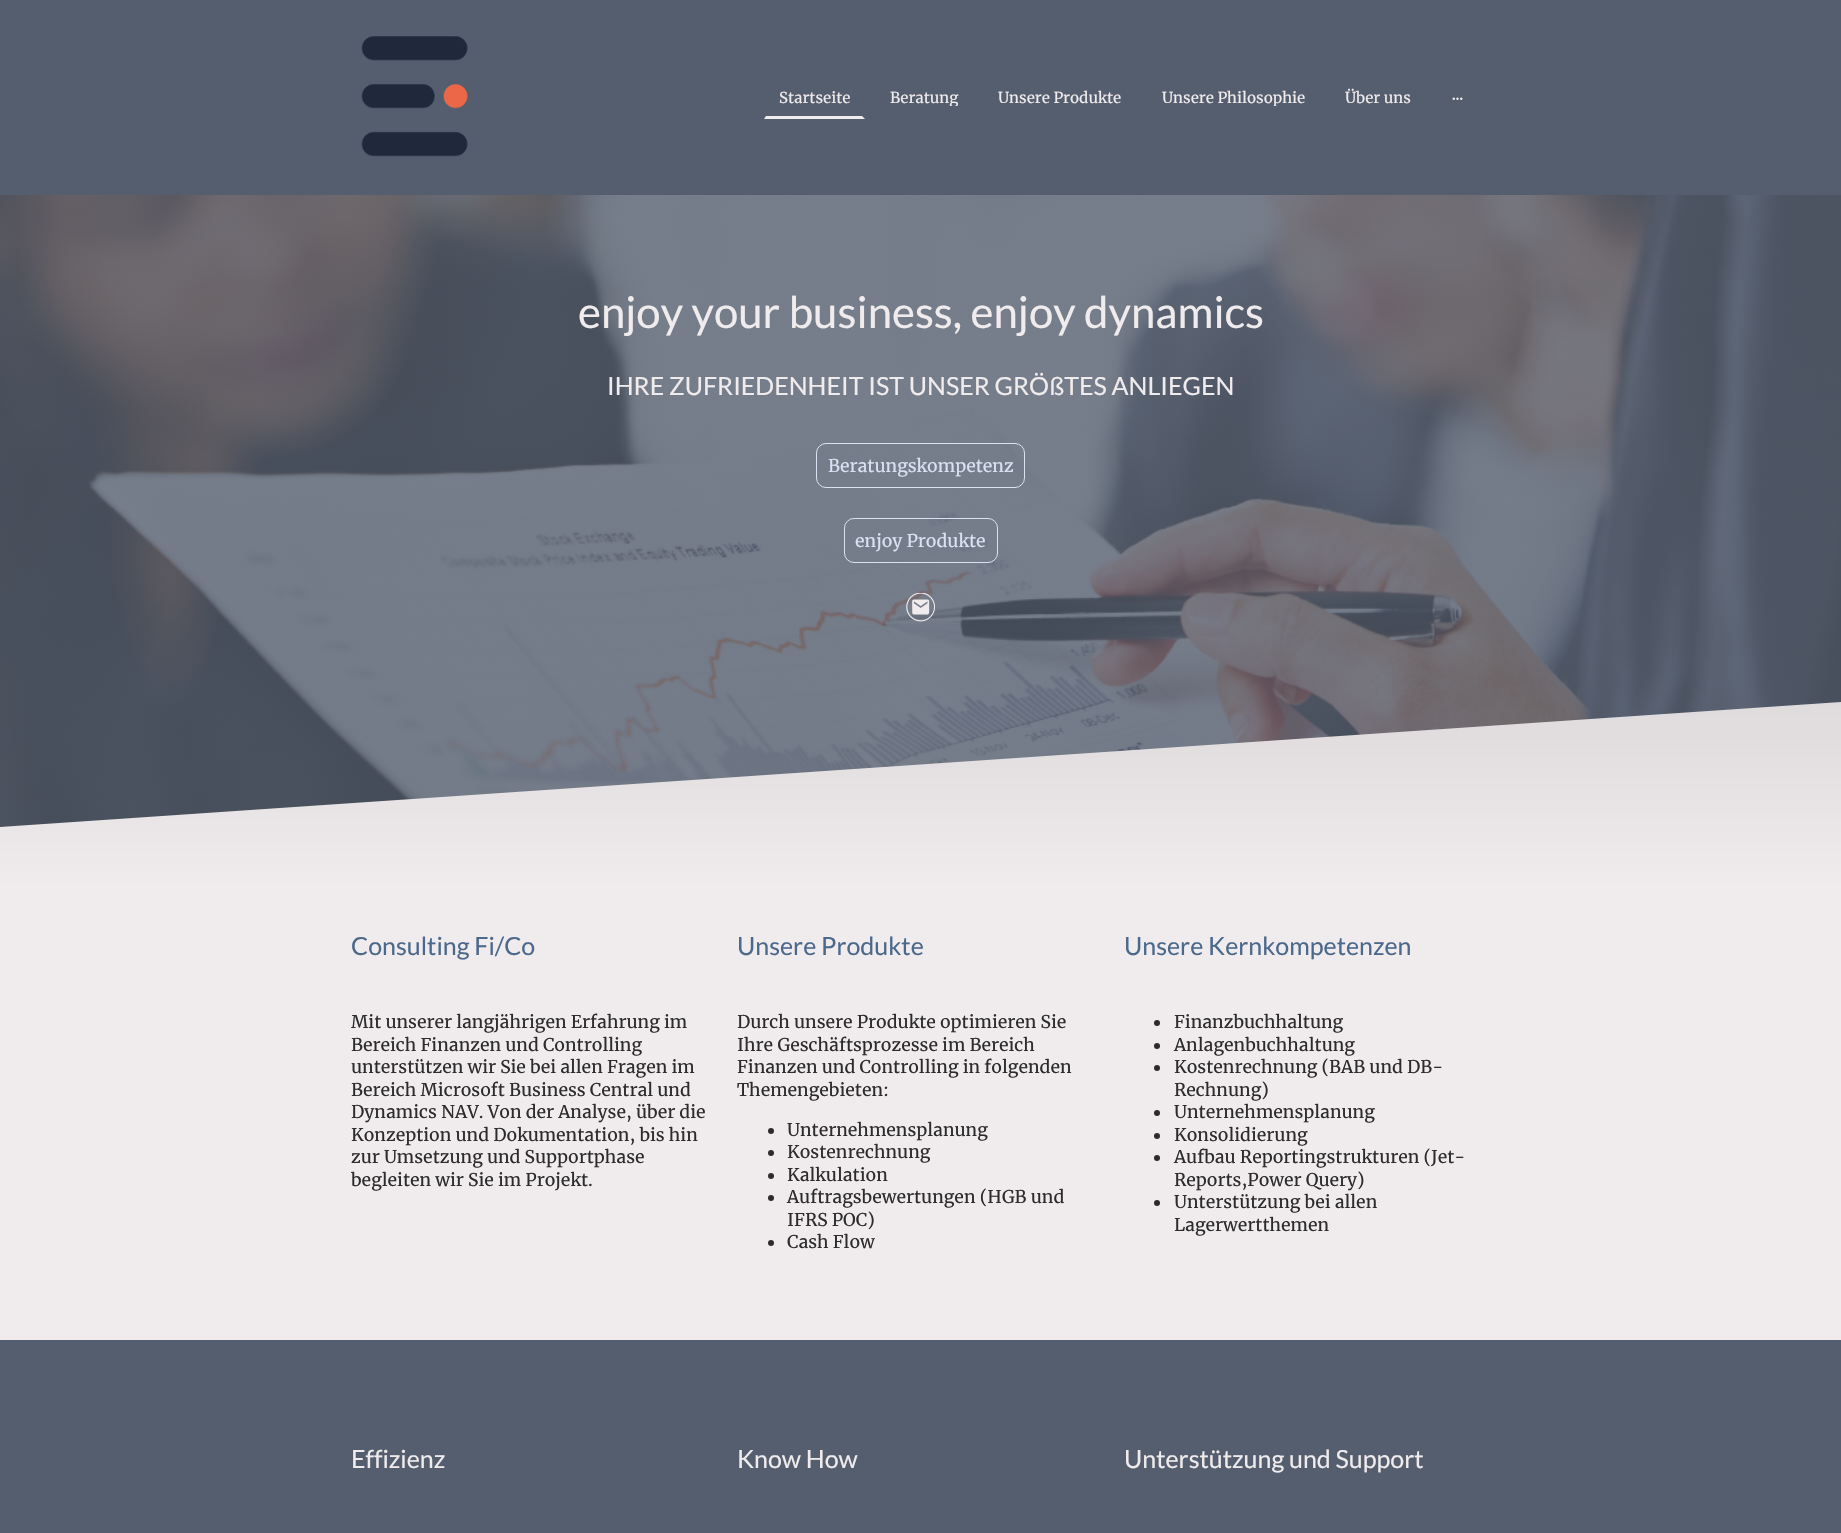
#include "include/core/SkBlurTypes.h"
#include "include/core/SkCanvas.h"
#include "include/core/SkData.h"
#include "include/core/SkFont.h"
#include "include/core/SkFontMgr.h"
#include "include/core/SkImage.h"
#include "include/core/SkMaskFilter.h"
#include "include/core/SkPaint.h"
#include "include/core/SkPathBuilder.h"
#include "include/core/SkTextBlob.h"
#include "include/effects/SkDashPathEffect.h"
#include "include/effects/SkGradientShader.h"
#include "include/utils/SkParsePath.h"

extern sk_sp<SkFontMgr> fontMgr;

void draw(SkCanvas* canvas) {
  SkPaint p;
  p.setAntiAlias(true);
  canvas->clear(SkColorSetRGB(85, 94, 110));
  canvas->drawImageRect(SkImages::DeferredFromEncodedData(SkData::MakeFromFileName("images/1.png")), SkRect::MakeLTRB(361, 36, 468, 157), SkSamplingOptions());
  p.setColor(SkColorSetRGB(240, 235, 236));
  canvas->drawPath(SkPathBuilder().moveTo(865, 119).lineTo(764, 119).lineTo(766, 116).lineTo(862, 116).close().detach(), p);
  canvas->drawImageRect(SkImages::DeferredFromEncodedData(SkData::MakeFromFileName("images/2.png")), SkRect::MakeLTRB(1452, 97, 1463, 100), SkSamplingOptions());
  canvas->drawImageRect(SkImages::DeferredFromEncodedData(SkData::MakeFromFileName("images/3.png")), SkRect::MakeLTRB(0, 195, 1841, 827), SkSamplingOptions());
  p.setStyle(SkPaint::kStroke_Style);
  p.setStrokeWidth(1);
  p.setColor(SkColorSetRGB(217, 226, 242));
  canvas->drawRoundRect(SkRect::MakeLTRB(816.5f, 443.5f, 1024.5f, 487.5f), 9.5f, 9.5f, p);
  canvas->drawRoundRect(SkRect::MakeLTRB(844.5f, 518.5f, 997.5f, 562.5f), 9.5f, 9.5f, p);
  canvas->drawImageRect(SkImages::DeferredFromEncodedData(SkData::MakeFromFileName("images/4.png")), SkRect::MakeLTRB(906, 593, 935, 622), SkSamplingOptions());
  p.setStyle(SkPaint::kFill_Style);
  p.setColor(SkColorSetRGB(240, 235, 236));
  canvas->drawPath(SkPathBuilder().moveTo(0, 827).lineTo(0, 1341).lineTo(1841, 1341).lineTo(1841, 702).close().detach(), p);
  {
    const SkColor colors[] = {SkColorSetARGB(18, 0, 0, 0), SkColorSetARGB(0, 0, 0, 0)};
    const float stops[] = {0, 1};
    const SkPoint ends[] = {{921, 701}, {921, 889}};
    p.setShader(SkGradientShader::MakeLinear(ends, colors, stops, 2, SkTileMode::kClamp));
    p.setAlpha(255);
  }
  canvas->drawPath(SkPathBuilder().moveTo(0, 827).lineTo(0, 889).lineTo(1841, 889).lineTo(1841, 702).close().detach(), p);
  p.setShader(nullptr);
  p.setColor(SkColorSetRGB(44, 44, 44));
  canvas->drawCircle(771, 1131, 3, p);
  canvas->drawCircle(771, 1153, 3, p);
  canvas->drawCircle(771, 1176, 3, p);
  canvas->drawCircle(771, 1198, 3, p);
  canvas->drawCircle(771, 1243, 3, p);
  canvas->drawCircle(1157, 1023, 3, p);
  canvas->drawCircle(1157, 1046, 3, p);
  canvas->drawCircle(1157, 1068, 3, p);
  canvas->drawCircle(1157, 1113, 3, p);
  canvas->drawCircle(1157, 1136, 3, p);
  canvas->drawCircle(1157, 1158, 3, p);
  canvas->drawCircle(1157, 1203, 3, p);
  p.setColor(SkColorSetRGB(85, 94, 110));
  canvas->drawRect(SkRect::MakeLTRB(0, 1340, 1841, 1341), p);
  SkFont font1(fontMgr->matchFamilyStyle("Merriweather", SkFontStyle::Normal()), 15);
  font1.setSubpixel(true);
  p.setColor(SkColorSetRGB(240, 235, 236));
  canvas->drawString("Startseite", 779, 103, font1, p);
  canvas->save();
  canvas->clipRect(SkRect::MakeLTRB(890, 88, 959, 106));
  canvas->drawString("Beratung", 890, 103, font1, p);
  canvas->restore();
  canvas->drawString("Unsere Produkte", 998, 103, font1, p);
  canvas->save();
  canvas->clipRect(SkRect::MakeLTRB(1161, 88, 1305, 106));
  canvas->drawString("Unsere Philosophie", 1162, 103, font1, p);
  canvas->restore();
  canvas->drawString("Über uns", 1345, 103, font1, p);
  SkFont font2(fontMgr->matchFamilyStyle("Lato", SkFontStyle::Normal()), 43.75f);
  font2.setSubpixel(true);
  canvas->drawString("enjoy your business, enjoy dynamics", 578, 328, font2, p);
  SkFont font3(fontMgr->matchFamilyStyle("Lato", SkFontStyle::Normal()), 25);
  font3.setSubpixel(true);
  canvas->drawString("IHRE ZUFRIEDENHEIT IST UNSER GRÖßTES ANLIEGEN", 607, 395, font3, p);
  SkFont font4(fontMgr->matchFamilyStyle("Merriweather", SkFontStyle::Normal()), 17.5f);
  font4.setSubpixel(true);
  p.setColor(SkColorSetRGB(217, 226, 242));
  canvas->drawString("Beratungskompetenz", 828, 472, font4, p);
  canvas->drawString("enjoy Produkte", 855, 547, font4, p);
  p.setColor(SkColorSetRGB(75, 105, 140));
  canvas->drawString("Consulting Fi/Co", 351, 955, font3, p);
  p.setColor(SkColorSetRGB(44, 44, 44));
  canvas->drawString("Mit unserer langjährigen Erfahrung im", 351, 1028, font4, p);
  canvas->drawString("Bereich Finanzen und Controlling", 351, 1051, font4, p);
  canvas->drawString("unterstützen wir Sie bei allen Fragen im", 351, 1073, font4, p);
  canvas->drawString("Bereich Microsoft Business Central und", 351, 1096, font4, p);
  canvas->drawString("Dynamics NAV. Von der Analyse, über die", 351, 1118, font4, p);
  canvas->drawString("Konzeption und Dokumentation, bis hin", 351, 1141, font4, p);
  canvas->drawString("zur Umsetzung und Supportphase", 351, 1163, font4, p);
  canvas->drawString("begleiten wir Sie im Projekt.", 351, 1186, font4, p);
  p.setColor(SkColorSetRGB(75, 105, 140));
  canvas->drawString("Unsere Produkte", 737, 955, font3, p);
  p.setColor(SkColorSetRGB(44, 44, 44));
  canvas->drawString("Durch unsere Produkte optimieren Sie", 737, 1028, font4, p);
  canvas->drawString("Ihre Geschäftsprozesse im Bereich", 737, 1051, font4, p);
  canvas->drawString("Finanzen und Controlling in folgenden", 737, 1073, font4, p);
  canvas->drawString("Themengebieten:", 737, 1096, font4, p);
  canvas->drawString("Unternehmensplanung", 787, 1136, font4, p);
  canvas->drawString("Kostenrechnung", 787, 1158, font4, p);
  canvas->drawString("Kalkulation", 787, 1181, font4, p);
  canvas->drawString("Auftragsbewertungen (HGB und", 787, 1203, font4, p);
  canvas->drawString("IFRS POC)", 787, 1226, font4, p);
  canvas->drawString("Cash Flow", 787, 1248, font4, p);
  p.setColor(SkColorSetRGB(75, 105, 140));
  canvas->drawString("Unsere Kernkompetenzen", 1124, 955, font3, p);
  p.setColor(SkColorSetRGB(44, 44, 44));
  canvas->drawString("Finanzbuchhaltung", 1174, 1028, font4, p);
  canvas->drawString("Anlagenbuchhaltung", 1174, 1051, font4, p);
  canvas->drawString("Kostenrechnung (BAB und DB-", 1174, 1073, font4, p);
  canvas->drawString("Rechnung)", 1174, 1096, font4, p);
  canvas->drawString("Unternehmensplanung", 1174, 1118, font4, p);
  canvas->drawString("Konsolidierung", 1174, 1141, font4, p);
  canvas->drawString("Aufbau Reportingstrukturen (Jet-", 1174, 1163, font4, p);
  canvas->drawString("Reports,Power Query)", 1174, 1186, font4, p);
  canvas->drawString("Unterstützung bei allen", 1174, 1208, font4, p);
  canvas->drawString("Lagerwertthemen", 1174, 1231, font4, p);
  p.setColor(SkColorSetRGB(240, 235, 236));
  canvas->drawString("Effizienz", 351, 1468, font3, p);
  canvas->drawString("Know How", 737, 1468, font3, p);
  canvas->drawString("Unterstützung und Support", 1124, 1468, font3, p);
}
